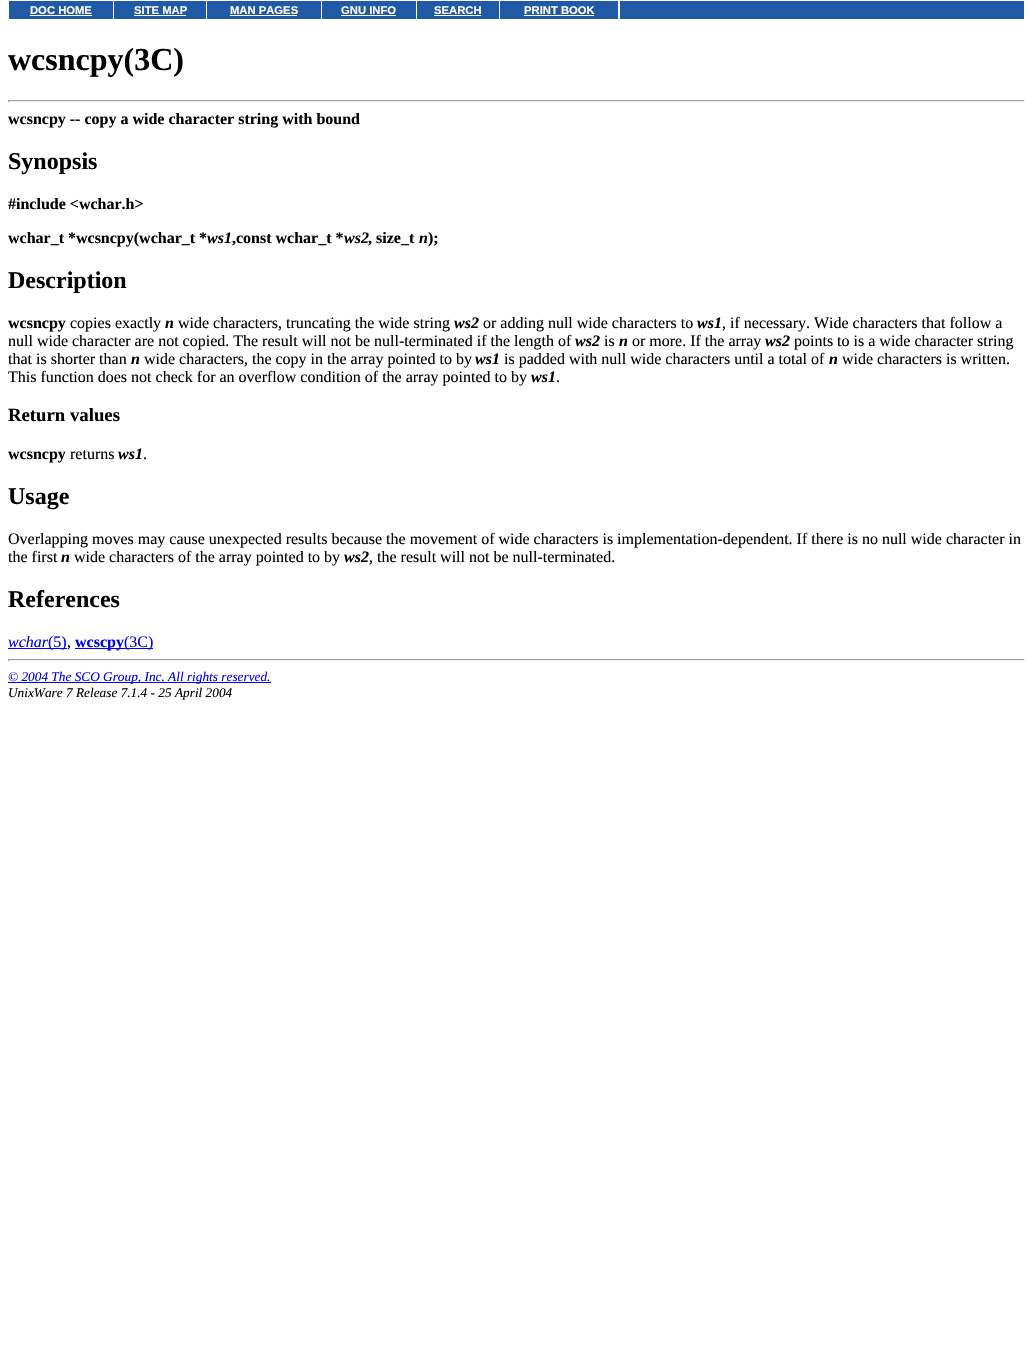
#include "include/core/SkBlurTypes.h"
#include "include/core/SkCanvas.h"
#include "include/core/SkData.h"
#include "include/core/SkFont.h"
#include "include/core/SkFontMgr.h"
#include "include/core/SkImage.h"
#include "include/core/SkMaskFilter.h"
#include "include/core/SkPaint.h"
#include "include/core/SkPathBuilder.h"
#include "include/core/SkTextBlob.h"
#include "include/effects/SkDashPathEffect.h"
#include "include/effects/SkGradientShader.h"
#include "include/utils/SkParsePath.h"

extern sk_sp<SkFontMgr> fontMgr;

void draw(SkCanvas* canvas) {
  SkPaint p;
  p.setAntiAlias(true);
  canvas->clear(SK_ColorWHITE);
  p.setColor(SkColorSetRGB(32, 89, 166));
  canvas->drawRect(SkRect::MakeLTRB(9, 1, 113, 19), p);
  p.setColor(SK_ColorWHITE);
  canvas->drawRect(SkRect::MakeLTRB(30, 15, 92, 16), p);
  p.setColor(SkColorSetRGB(32, 89, 166));
  canvas->drawRect(SkRect::MakeLTRB(114, 1, 206, 19), p);
  p.setColor(SK_ColorWHITE);
  canvas->drawRect(SkRect::MakeLTRB(134, 15, 186, 16), p);
  p.setColor(SkColorSetRGB(32, 89, 166));
  canvas->drawRect(SkRect::MakeLTRB(207, 1, 321, 19), p);
  p.setColor(SK_ColorWHITE);
  canvas->drawRect(SkRect::MakeLTRB(230, 15, 297, 16), p);
  p.setColor(SkColorSetRGB(32, 89, 166));
  canvas->drawRect(SkRect::MakeLTRB(322, 1, 416, 19), p);
  p.setColor(SK_ColorWHITE);
  canvas->drawRect(SkRect::MakeLTRB(341, 15, 396, 16), p);
  p.setColor(SkColorSetRGB(32, 89, 166));
  canvas->drawRect(SkRect::MakeLTRB(417, 1, 499, 19), p);
  p.setColor(SK_ColorWHITE);
  canvas->drawRect(SkRect::MakeLTRB(434, 15, 481, 16), p);
  p.setColor(SkColorSetRGB(32, 89, 166));
  canvas->drawRect(SkRect::MakeLTRB(500, 1, 618, 19), p);
  p.setColor(SK_ColorWHITE);
  canvas->drawRect(SkRect::MakeLTRB(524, 15, 594, 16), p);
  p.setColor(SkColorSetRGB(32, 89, 166));
  canvas->drawRect(SkRect::MakeLTRB(620, 1, 1024, 19), p);
  p.setColor(SkColorSetRGB(159, 159, 159));
  canvas->drawRect(SkRect::MakeLTRB(8, 100, 1025, 101), p);
  p.setColor(SkColorSetRGB(238, 238, 238));
  canvas->drawRect(SkRect::MakeLTRB(1024, 100, 1025, 102), p);
  canvas->drawRect(SkRect::MakeLTRB(8, 101, 1025, 102), p);
  p.setColor(SkColorSetRGB(159, 159, 159));
  canvas->drawRect(SkRect::MakeLTRB(8, 100, 9, 102), p);
  p.setColor(SkColorSetRGB(0, 0, 238));
  canvas->drawRect(SkRect::MakeLTRB(8, 648, 67, 649), p);
  canvas->drawRect(SkRect::MakeLTRB(75, 648, 153, 649), p);
  p.setColor(SkColorSetRGB(159, 159, 159));
  canvas->drawRect(SkRect::MakeLTRB(8, 659, 1025, 660), p);
  p.setColor(SkColorSetRGB(238, 238, 238));
  canvas->drawRect(SkRect::MakeLTRB(1024, 659, 1025, 661), p);
  canvas->drawRect(SkRect::MakeLTRB(8, 660, 1025, 661), p);
  p.setColor(SkColorSetRGB(159, 159, 159));
  canvas->drawRect(SkRect::MakeLTRB(8, 659, 9, 661), p);
  p.setColor(SkColorSetRGB(0, 0, 238));
  canvas->drawRect(SkRect::MakeLTRB(8, 682, 271, 683), p);
  SkFont font1(fontMgr->matchFamilyStyle("Liberation Sans", SkFontStyle::Bold()), 11.25f);
  font1.setSubpixel(true);
  p.setColor(SK_ColorWHITE);
  canvas->drawString("DOC HOME", 30, 14, font1, p);
  canvas->drawString("SITE MAP", 134, 14, font1, p);
  canvas->drawString("MAN PAGES", 230, 14, font1, p);
  canvas->drawString("GNU INFO", 341, 14, font1, p);
  canvas->drawString("SEARCH", 434, 14, font1, p);
  canvas->drawString("PRINT BOOK", 524, 14, font1, p);
  SkFont font2(fontMgr->matchFamilyStyle("Liberation Serif", SkFontStyle::Bold()), 32);
  font2.setSubpixel(true);
  p.setColor(SK_ColorBLACK);
  canvas->drawString("wcsncpy(3C)", 8, 70, font2, p);
  SkFont font3(fontMgr->matchFamilyStyle("Liberation Serif", SkFontStyle::Bold()), 16);
  font3.setSubpixel(true);
  canvas->drawString("wcsncpy -- copy a wide character string with bound", 8, 124, font3, p);
  SkFont font4(fontMgr->matchFamilyStyle("Liberation Serif", SkFontStyle::Bold()), 24);
  font4.setSubpixel(true);
  canvas->drawString("Synopsis", 8, 169, font4, p);
  canvas->drawString("#include <wchar.h>", 8, 209, font3, p);
  canvas->drawString("wchar_t *wcsncpy(wchar_t *", 8, 243, font3, p);
  SkFont font5(fontMgr->matchFamilyStyle("Liberation Serif", SkFontStyle::BoldItalic()), 16);
  font5.setSubpixel(true);
  canvas->drawString("ws1", 207, 243, font5, p);
  canvas->drawString(",const wchar_t *", 232, 243, font3, p);
  canvas->drawString("ws2", 344, 243, font5, p);
  canvas->drawString(", size_t", 368, 243, font3, p);
  canvas->drawString("n", 419, 243, font5, p);
  canvas->drawString(");", 428, 243, font3, p);
  canvas->drawString("Description", 8, 288, font4, p);
  canvas->drawString("wcsncpy", 8, 328, font3, p);
  SkFont font6(fontMgr->matchFamilyStyle("Liberation Serif", SkFontStyle::Normal()), 16);
  font6.setSubpixel(true);
  canvas->drawString("copies exactly", 70, 328, font6, p);
  canvas->drawString("n", 165, 328, font5, p);
  canvas->drawString("wide characters, truncating the wide string", 178, 328, font6, p);
  canvas->drawString("ws2", 454, 328, font5, p);
  canvas->drawString("or adding null wide characters to", 483, 328, font6, p);
  canvas->drawString("ws1", 697, 328, font5, p);
  canvas->drawString(", if necessary. Wide characters that follow a", 722, 328, font6, p);
  canvas->drawString("null wide character are not copied. The result will not be null-terminated if the length of", 8, 346, font6, p);
  canvas->drawString("ws2", 575, 346, font5, p);
  canvas->drawString("is", 604, 346, font6, p);
  canvas->drawString("n", 619, 346, font5, p);
  canvas->drawString("or more. If the array", 632, 346, font6, p);
  canvas->drawString("ws2", 765, 346, font5, p);
  canvas->drawString("points to is a wide character string", 794, 346, font6, p);
  canvas->drawString("that is shorter than", 8, 364, font6, p);
  canvas->drawString("n", 131, 364, font5, p);
  canvas->drawString("wide characters, the copy in the array pointed to by", 144, 364, font6, p);
  canvas->drawString("ws1", 475, 364, font5, p);
  canvas->drawString("is padded with null wide characters until a total of", 504, 364, font6, p);
  canvas->drawString("n", 829, 364, font5, p);
  canvas->drawString("wide characters is written.", 842, 364, font6, p);
  canvas->drawString("This function does not check for an overflow condition of the array pointed to by", 8, 382, font6, p);
  canvas->drawString("ws1", 531, 382, font5, p);
  canvas->drawString(".", 556, 382, font6, p);
  SkFont font7(fontMgr->matchFamilyStyle("Liberation Serif", SkFontStyle::Bold()), 18.75f);
  font7.setSubpixel(true);
  canvas->drawString("Return values", 8, 421, font7, p);
  canvas->drawString("wcsncpy", 8, 459, font3, p);
  canvas->drawString("returns", 70, 459, font6, p);
  canvas->drawString("ws1", 118, 459, font5, p);
  canvas->drawString(".", 143, 459, font6, p);
  canvas->drawString("Usage", 8, 504, font4, p);
  canvas->drawString("Overlapping moves may cause unexpected results because the movement of wide characters is implementation-dependent. If there is no null wide character in", 8, 544, font6, p);
  canvas->drawString("the first", 8, 562, font6, p);
  canvas->drawString("n", 61, 562, font5, p);
  canvas->drawString("wide characters of the array pointed to by", 74, 562, font6, p);
  canvas->drawString("ws2", 344, 562, font5, p);
  canvas->drawString(", the result will not be null-terminated.", 369, 562, font6, p);
  canvas->drawString("References", 8, 607, font4, p);
  SkFont font8(fontMgr->matchFamilyStyle("Liberation Serif", SkFontStyle::Italic()), 16);
  font8.setSubpixel(true);
  p.setColor(SkColorSetRGB(0, 0, 238));
  canvas->drawString("wchar", 8, 647, font8, p);
  canvas->drawString("(5)", 48, 647, font6, p);
  p.setColor(SK_ColorBLACK);
  canvas->drawString(",", 67, 647, font6, p);
  p.setColor(SkColorSetRGB(0, 0, 238));
  canvas->drawString("wcscpy", 75, 647, font3, p);
  canvas->drawString("(3C)", 124, 647, font6, p);
  SkFont font9(fontMgr->matchFamilyStyle("Liberation Serif", SkFontStyle::Italic()), 13.3f);
  font9.setSubpixel(true);
  canvas->drawString("© 2004 The SCO Group, Inc. All rights reserved.", 8, 681, font9, p);
  p.setColor(SK_ColorBLACK);
  canvas->drawString("UnixWare 7 Release 7.1.4 - 25 April 2004", 8, 697, font9, p);
}
